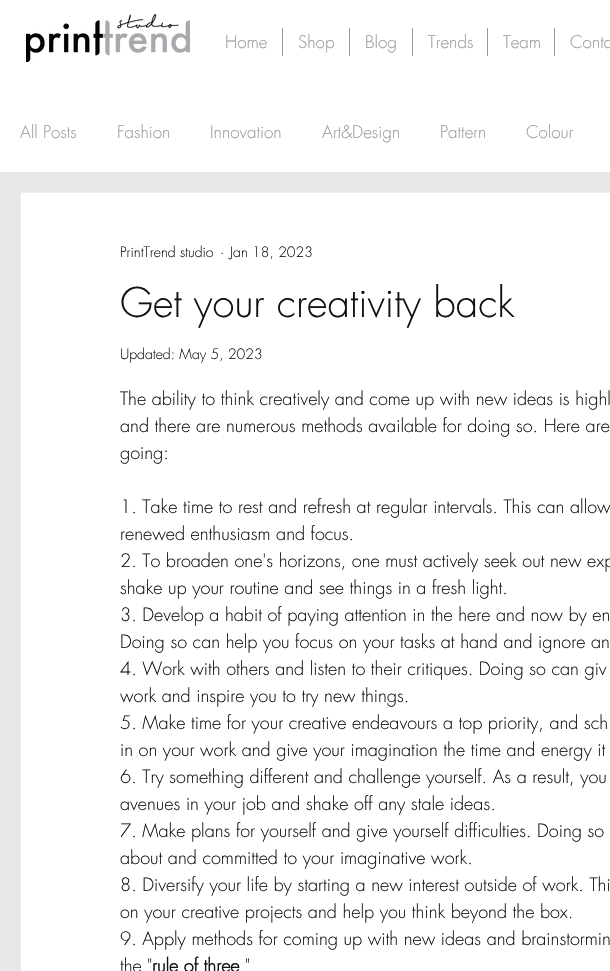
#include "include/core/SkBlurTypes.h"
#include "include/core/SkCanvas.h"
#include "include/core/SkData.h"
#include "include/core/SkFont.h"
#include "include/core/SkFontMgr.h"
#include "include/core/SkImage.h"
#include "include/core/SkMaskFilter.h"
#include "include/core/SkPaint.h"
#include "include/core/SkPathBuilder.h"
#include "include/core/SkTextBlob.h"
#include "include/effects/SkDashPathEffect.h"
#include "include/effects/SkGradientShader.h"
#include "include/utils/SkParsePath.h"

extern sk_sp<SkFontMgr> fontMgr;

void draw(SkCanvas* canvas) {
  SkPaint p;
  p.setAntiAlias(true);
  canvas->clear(SK_ColorWHITE);
  canvas->drawImageRect(SkImages::DeferredFromEncodedData(SkData::MakeFromFileName("images/1.png")), SkRect::MakeLTRB(26, 14, 190, 62), SkSamplingOptions());
  p.setColor(SkColorSetRGB(153, 153, 151));
  canvas->drawRect(SkRect::MakeLTRB(282, 28, 283, 56), p);
  canvas->drawRect(SkRect::MakeLTRB(349, 28, 350, 56), p);
  canvas->drawRect(SkRect::MakeLTRB(412, 28, 413, 56), p);
  canvas->drawRect(SkRect::MakeLTRB(487, 28, 488, 56), p);
  canvas->drawRect(SkRect::MakeLTRB(554, 28, 555, 56), p);
  p.setColor(SkColorSetRGB(232, 230, 230));
  canvas->drawRect(SkRect::MakeLTRB(0, 172, 610, 971), p);
  p.setColor(SK_ColorWHITE);
  canvas->drawRect(SkRect::MakeLTRB(20.5f, 192.5f, 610.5f, 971.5f), p);
  p.setStyle(SkPaint::kStroke_Style);
  p.setStrokeWidth(1);
  p.setColor(SkColorSetRGB(238, 236, 236));
  canvas->drawRect(SkRect::MakeLTRB(20.5f, 192.5f, 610.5f, 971.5f), p);
  SkFont font1(fontMgr->matchFamilyStyle("futura", SkFontStyle(300, SkFontStyle::kNormal_Width, SkFontStyle::kUpright_Slant)), 17);
  font1.setSubpixel(true);
  p.setStyle(SkPaint::kFill_Style);
  p.setColor(SkColorSetRGB(153, 153, 151));
  canvas->drawString("Home", 225, 48, font1, p);
  canvas->drawString("Shop", 298, 48, font1, p);
  canvas->drawString("Blog", 365, 48, font1, p);
  canvas->drawString("Trends", 428, 48, font1, p);
  canvas->drawString("Team", 503, 48, font1, p);
  canvas->drawString("Conta", 570, 48, font1, p);
  canvas->drawString("All Posts", 20, 138, font1, p);
  canvas->drawString("Fashion", 117, 138, font1, p);
  canvas->drawString("Innovation", 210, 138, font1, p);
  canvas->drawString("Art&Design", 322, 138, font1, p);
  canvas->drawString("Pattern", 440, 138, font1, p);
  canvas->drawString("Colour", 526, 138, font1, p);
  SkFont font2(fontMgr->matchFamilyStyle("futura", SkFontStyle(300, SkFontStyle::kNormal_Width, SkFontStyle::kUpright_Slant)), 14);
  font2.setSubpixel(true);
  p.setColor(SkColorSetRGB(18, 18, 18));
  canvas->drawString("PrintTrend studio", 120, 257, font2, p);
  canvas->drawString("·", 220, 257, font2, p);
  canvas->drawString("Jan 18, 2023", 230, 257, font2, p);
  SkFont font3(fontMgr->matchFamilyStyle("futura", SkFontStyle(300, SkFontStyle::kNormal_Width, SkFontStyle::kUpright_Slant)), 40);
  font3.setSubpixel(true);
  canvas->drawString("Get your creativity back", 120, 317, font3, p);
  canvas->drawString("Updated: May 5, 2023", 120, 359, font2, p);
  SkFont font4(fontMgr->matchFamilyStyle("futura", SkFontStyle(300, SkFontStyle::kNormal_Width, SkFontStyle::kUpright_Slant)), 18);
  font4.setSubpixel(true);
  canvas->drawString("The ability to think creatively and come up with new ideas is highl", 120, 405, font4, p);
  canvas->drawString("and there are numerous methods available for doing so. Here are", 120, 432, font4, p);
  canvas->drawString("going:", 120, 459, font4, p);
  canvas->drawString("1. Take time to rest and refresh at regular intervals. This can allow", 120, 513, font4, p);
  canvas->drawString("renewed enthusiasm and focus.", 120, 540, font4, p);
  canvas->drawString("2. To broaden one's horizons, one must actively seek out new exp", 120, 567, font4, p);
  canvas->drawString("shake up your routine and see things in a fresh light.", 120, 594, font4, p);
  canvas->drawString("3. Develop a habit of paying attention in the here and now by en", 120, 621, font4, p);
  canvas->drawString("Doing so can help you focus on your tasks at hand and ignore an", 120, 648, font4, p);
  canvas->drawString("4. Work with others and listen to their critiques. Doing so can giv", 120, 675, font4, p);
  canvas->drawString("work and inspire you to try new things.", 120, 702, font4, p);
  canvas->drawString("5. Make time for your creative endeavours a top priority, and sch", 120, 729, font4, p);
  canvas->drawString("in on your work and give your imagination the time and energy it", 120, 756, font4, p);
  canvas->drawString("6. Try something different and challenge yourself. As a result, you", 120, 783, font4, p);
  canvas->drawString("avenues in your job and shake off any stale ideas.", 120, 810, font4, p);
  canvas->drawString("7. Make plans for yourself and give yourself difficulties. Doing so", 120, 837, font4, p);
  canvas->drawString("about and committed to your imaginative work.", 120, 864, font4, p);
  canvas->drawString("8. Diversify your life by starting a new interest outside of work. Thi", 120, 891, font4, p);
  canvas->drawString("on your creative projects and help you think beyond the box.", 120, 918, font4, p);
  canvas->drawString("9. Apply methods for coming up with new ideas and brainstormin", 120, 945, font4, p);
  canvas->drawString("the \"", 120, 972, font4, p);
  SkFont font5(fontMgr->matchFamilyStyle("futura", SkFontStyle::Bold()), 18);
  font5.setSubpixel(true);
  canvas->drawString("rule of three", 152, 972, font5, p);
  canvas->drawString("\"", 245, 972, font4, p);
}
